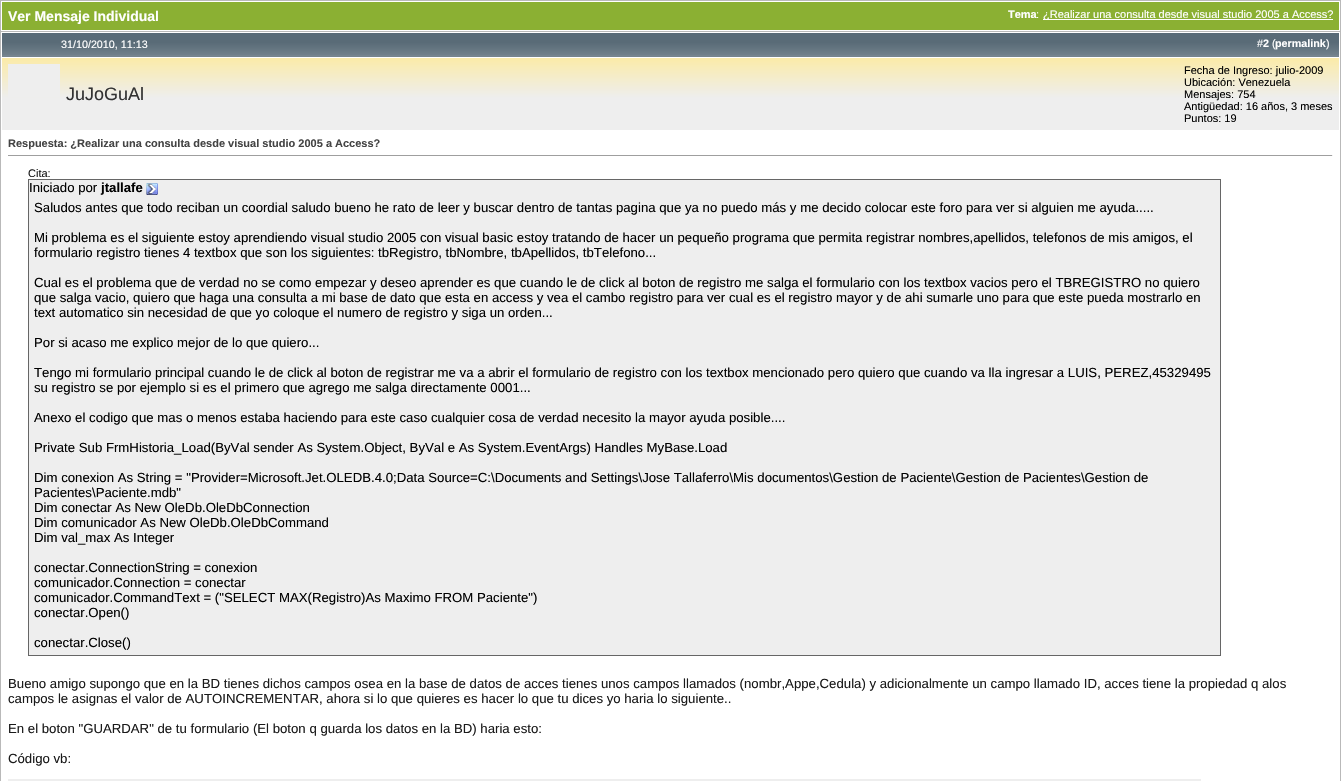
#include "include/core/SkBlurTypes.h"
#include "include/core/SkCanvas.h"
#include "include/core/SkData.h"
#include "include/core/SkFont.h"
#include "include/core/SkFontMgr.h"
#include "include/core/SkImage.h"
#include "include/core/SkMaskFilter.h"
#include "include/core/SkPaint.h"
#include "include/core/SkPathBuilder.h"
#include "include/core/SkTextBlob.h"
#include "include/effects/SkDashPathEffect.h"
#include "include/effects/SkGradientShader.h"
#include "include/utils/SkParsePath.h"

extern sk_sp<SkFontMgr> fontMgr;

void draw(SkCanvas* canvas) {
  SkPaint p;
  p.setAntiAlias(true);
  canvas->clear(SK_ColorWHITE);
  p.setColor(SkColorSetRGB(185, 185, 185));
  canvas->drawRect(SkRect::MakeLTRB(0, 0, 1341, 1), p);
  canvas->drawRect(SkRect::MakeLTRB(1340, 0, 1341, 31), p);
  canvas->drawRect(SkRect::MakeLTRB(0, 0, 1, 31), p);
  p.setColor(SkColorSetRGB(139, 176, 51));
  canvas->drawRect(SkRect::MakeLTRB(2, 2, 1339, 30), p);
  p.setColor(SK_ColorWHITE);
  canvas->drawRect(SkRect::MakeLTRB(1043, 19, 1333, 20), p);
  p.setStyle(SkPaint::kStroke_Style);
  p.setStrokeWidth(1);
  p.setColor(SkColorSetRGB(185, 185, 185));
  canvas->drawRect(SkRect::MakeLTRB(0.5f, 31.5f, 1340.5f, 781.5f), p);
  p.setStyle(SkPaint::kFill_Style);
  p.setColor(SkColorSetRGB(118, 132, 142));
  canvas->drawRect(SkRect::MakeLTRB(2, 55, 1339, 57), p);
  canvas->drawImageRect(SkImages::DeferredFromEncodedData(SkData::MakeFromFileName("images/1.png")), SkRect::MakeLTRB(2, 33, 1339, 55), SkSamplingOptions());
  {
    const SkColor colors[] = {SkColorSetRGB(251, 235, 168), SkColorSetRGB(238, 238, 238)};
    const float stops[] = {0, 1};
    const SkPoint ends[] = {{2, 58}, {2, 98}};
    p.setShader(SkGradientShader::MakeLinear(ends, colors, stops, 2, SkTileMode::kClamp));
    p.setAlpha(255);
  }
  canvas->drawRect(SkRect::MakeLTRB(2, 58, 1339, 130), p);
  p.setShader(nullptr);
  p.setColor(SkColorSetRGB(238, 238, 238));
  canvas->drawRect(SkRect::MakeLTRB(8, 64, 60, 97), p);
  p.setColor(SkColorSetRGB(159, 159, 159));
  canvas->drawRect(SkRect::MakeLTRB(8, 155, 1333, 156), p);
  p.setColor(SkColorSetRGB(238, 238, 238));
  canvas->drawRect(SkRect::MakeLTRB(1332, 155, 1333, 156), p);
  canvas->drawRect(SkRect::MakeLTRB(28.5f, 179.5f, 1220.5f, 655.5f), p);
  p.setStyle(SkPaint::kStroke_Style);
  p.setColor(SkColorSetRGB(102, 102, 102));
  canvas->drawRect(SkRect::MakeLTRB(28.5f, 179.5f, 1220.5f, 655.5f), p);
  canvas->drawImageRect(SkImages::DeferredFromEncodedData(SkData::MakeFromFileName("images/2.png")), SkRect::MakeLTRB(146, 183, 158, 195), SkSamplingOptions());
  p.setStyle(SkPaint::kFill_Style);
  p.setColor(SkColorSetRGB(238, 238, 238));
  canvas->drawRect(SkRect::MakeLTRB(8, 779, 1201, 781), p);
  SkFont font1(fontMgr->matchFamilyStyle("Liberation Sans", SkFontStyle::Bold()), 14);
  font1.setSubpixel(true);
  p.setColor(SK_ColorWHITE);
  canvas->drawString("Ver Mensaje Individual", 8, 21, font1, p);
  SkFont font2(fontMgr->matchFamilyStyle("Liberation Sans", SkFontStyle::Bold()), 11);
  font2.setSubpixel(true);
  canvas->drawString("Tema", 1008, 18, font2, p);
  SkFont font3(fontMgr->matchFamilyStyle("Liberation Sans", SkFontStyle::Normal()), 11);
  font3.setSubpixel(true);
  canvas->drawString(":", 1036, 18, font3, p);
  canvas->drawString("¿Realizar una consulta desde visual studio 2005 a Access?", 1043, 18, font3, p);
  SkFont font4(fontMgr->matchFamilyStyle("Liberation Sans", SkFontStyle::Normal()), 10.75f);
  font4.setSubpixel(true);
  canvas->drawString("31/10/2010, 11:13", 61, 48, font4, p);
  canvas->drawString("#", 1257, 47, font4, p);
  SkFont font5(fontMgr->matchFamilyStyle("Liberation Sans", SkFontStyle::Bold()), 10.75f);
  font5.setSubpixel(true);
  canvas->drawString("2", 1263, 47, font5, p);
  canvas->drawString("(", 1272, 47, font4, p);
  canvas->drawString("permalink", 1275, 47, font5, p);
  canvas->drawString(")", 1326, 47, font4, p);
  SkFont font6(fontMgr->matchFamilyStyle("Liberation Sans", SkFontStyle::Normal()), 18);
  font6.setSubpixel(true);
  p.setColor(SkColorSetRGB(51, 51, 51));
  canvas->drawString("JuJoGuAl", 66, 100, font6, p);
  p.setColor(SK_ColorBLACK);
  canvas->drawString("Fecha de Ingreso: julio-2009", 1184, 74, font3, p);
  canvas->drawString("Ubicación: Venezuela", 1184, 86, font3, p);
  canvas->drawString("Mensajes: 754", 1184, 98, font3, p);
  canvas->drawString("Antigüedad: 16 años, 3 meses", 1184, 110, font3, p);
  canvas->drawString("Puntos: 19", 1184, 122, font3, p);
  p.setColor(SkColorSetRGB(68, 68, 68));
  canvas->drawString("Respuesta: ¿Realizar una consulta desde visual studio 2005 a Access?", 8, 147, font2, p);
  p.setColor(SkColorSetRGB(26, 26, 26));
  canvas->drawString("Cita:", 28, 177, font3, p);
  SkFont font7(fontMgr->matchFamilyStyle("Liberation Sans", SkFontStyle::Normal()), 13.2f);
  font7.setSubpixel(true);
  p.setColor(SK_ColorBLACK);
  canvas->drawString("Iniciado por", 29, 192, font7, p);
  SkFont font8(fontMgr->matchFamilyStyle("Liberation Sans", SkFontStyle::Bold()), 13.2f);
  font8.setSubpixel(true);
  canvas->drawString("jtallafe", 101, 192, font8, p);
  canvas->drawString("Saludos antes que todo reciban un coordial saludo bueno he rato de leer y buscar dentro de tantas pagina que ya no puedo más y me decido colocar este foro para ver si alguien me ayuda.....", 34, 212, font7, p);
  canvas->drawString("Mi problema es el siguiente estoy aprendiendo visual studio 2005 con visual basic estoy tratando de hacer un pequeño programa que permita registrar nombres,apellidos, telefonos de mis amigos, el", 34, 242, font7, p);
  canvas->drawString("formulario registro tienes 4 textbox que son los siguientes: tbRegistro, tbNombre, tbApellidos, tbTelefono...", 34, 257, font7, p);
  canvas->drawString("Cual es el problema que de verdad no se como empezar y deseo aprender es que cuando le de click al boton de registro me salga el formulario con los textbox vacios pero el TBREGISTRO no quiero", 34, 287, font7, p);
  canvas->drawString("que salga vacio, quiero que haga una consulta a mi base de dato que esta en access y vea el cambo registro para ver cual es el registro mayor y de ahi sumarle uno para que este pueda mostrarlo en", 34, 302, font7, p);
  canvas->drawString("text automatico sin necesidad de que yo coloque el numero de registro y siga un orden...", 34, 317, font7, p);
  canvas->drawString("Por si acaso me explico mejor de lo que quiero...", 34, 347, font7, p);
  canvas->drawString("Tengo mi formulario principal cuando le de click al boton de registrar me va a abrir el formulario de registro con los textbox mencionado pero quiero que cuando va lla ingresar a LUIS, PEREZ,45329495", 34, 377, font7, p);
  canvas->drawString("su registro se por ejemplo si es el primero que agrego me salga directamente 0001...", 34, 392, font7, p);
  canvas->drawString("Anexo el codigo que mas o menos estaba haciendo para este caso cualquier cosa de verdad necesito la mayor ayuda posible....", 34, 422, font7, p);
  canvas->drawString("Private Sub FrmHistoria_Load(ByVal sender As System.Object, ByVal e As System.EventArgs) Handles MyBase.Load", 34, 452, font7, p);
  canvas->drawString("Dim conexion As String = \"Provider=Microsoft.Jet.OLEDB.4.0;Data Source=C:\\Documents and Settings\\Jose Tallaferro\\Mis documentos\\Gestion de Paciente\\Gestion de Pacientes\\Gestion de", 34, 482, font7, p);
  canvas->drawString("Pacientes\\Paciente.mdb\"", 34, 497, font7, p);
  canvas->drawString("Dim conectar As New OleDb.OleDbConnection", 34, 512, font7, p);
  canvas->drawString("Dim comunicador As New OleDb.OleDbCommand", 34, 527, font7, p);
  canvas->drawString("Dim val_max As Integer", 34, 542, font7, p);
  canvas->drawString("conectar.ConnectionString = conexion", 34, 572, font7, p);
  canvas->drawString("comunicador.Connection = conectar", 34, 587, font7, p);
  canvas->drawString("comunicador.CommandText = (\"SELECT MAX(Registro)As Maximo FROM Paciente\")", 34, 602, font7, p);
  canvas->drawString("conectar.Open()", 34, 617, font7, p);
  canvas->drawString("conectar.Close()", 34, 647, font7, p);
  p.setColor(SkColorSetRGB(26, 26, 26));
  canvas->drawString("Bueno amigo supongo que en la BD tienes dichos campos osea en la base de datos de acces tienes unos campos llamados (nombr,Appe,Cedula) y adicionalmente un campo llamado ID, acces tiene la propiedad q alos", 8, 688, font7, p);
  canvas->drawString("campos le asignas el valor de AUTOINCREMENTAR, ahora si lo que quieres es hacer lo que tu dices yo haria lo siguiente..", 8, 703, font7, p);
  canvas->drawString("En el boton \"GUARDAR\" de tu formulario (El boton q guarda los datos en la BD) haria esto:", 8, 733, font7, p);
  canvas->drawString("Código vb:", 8, 763, font7, p);
}
